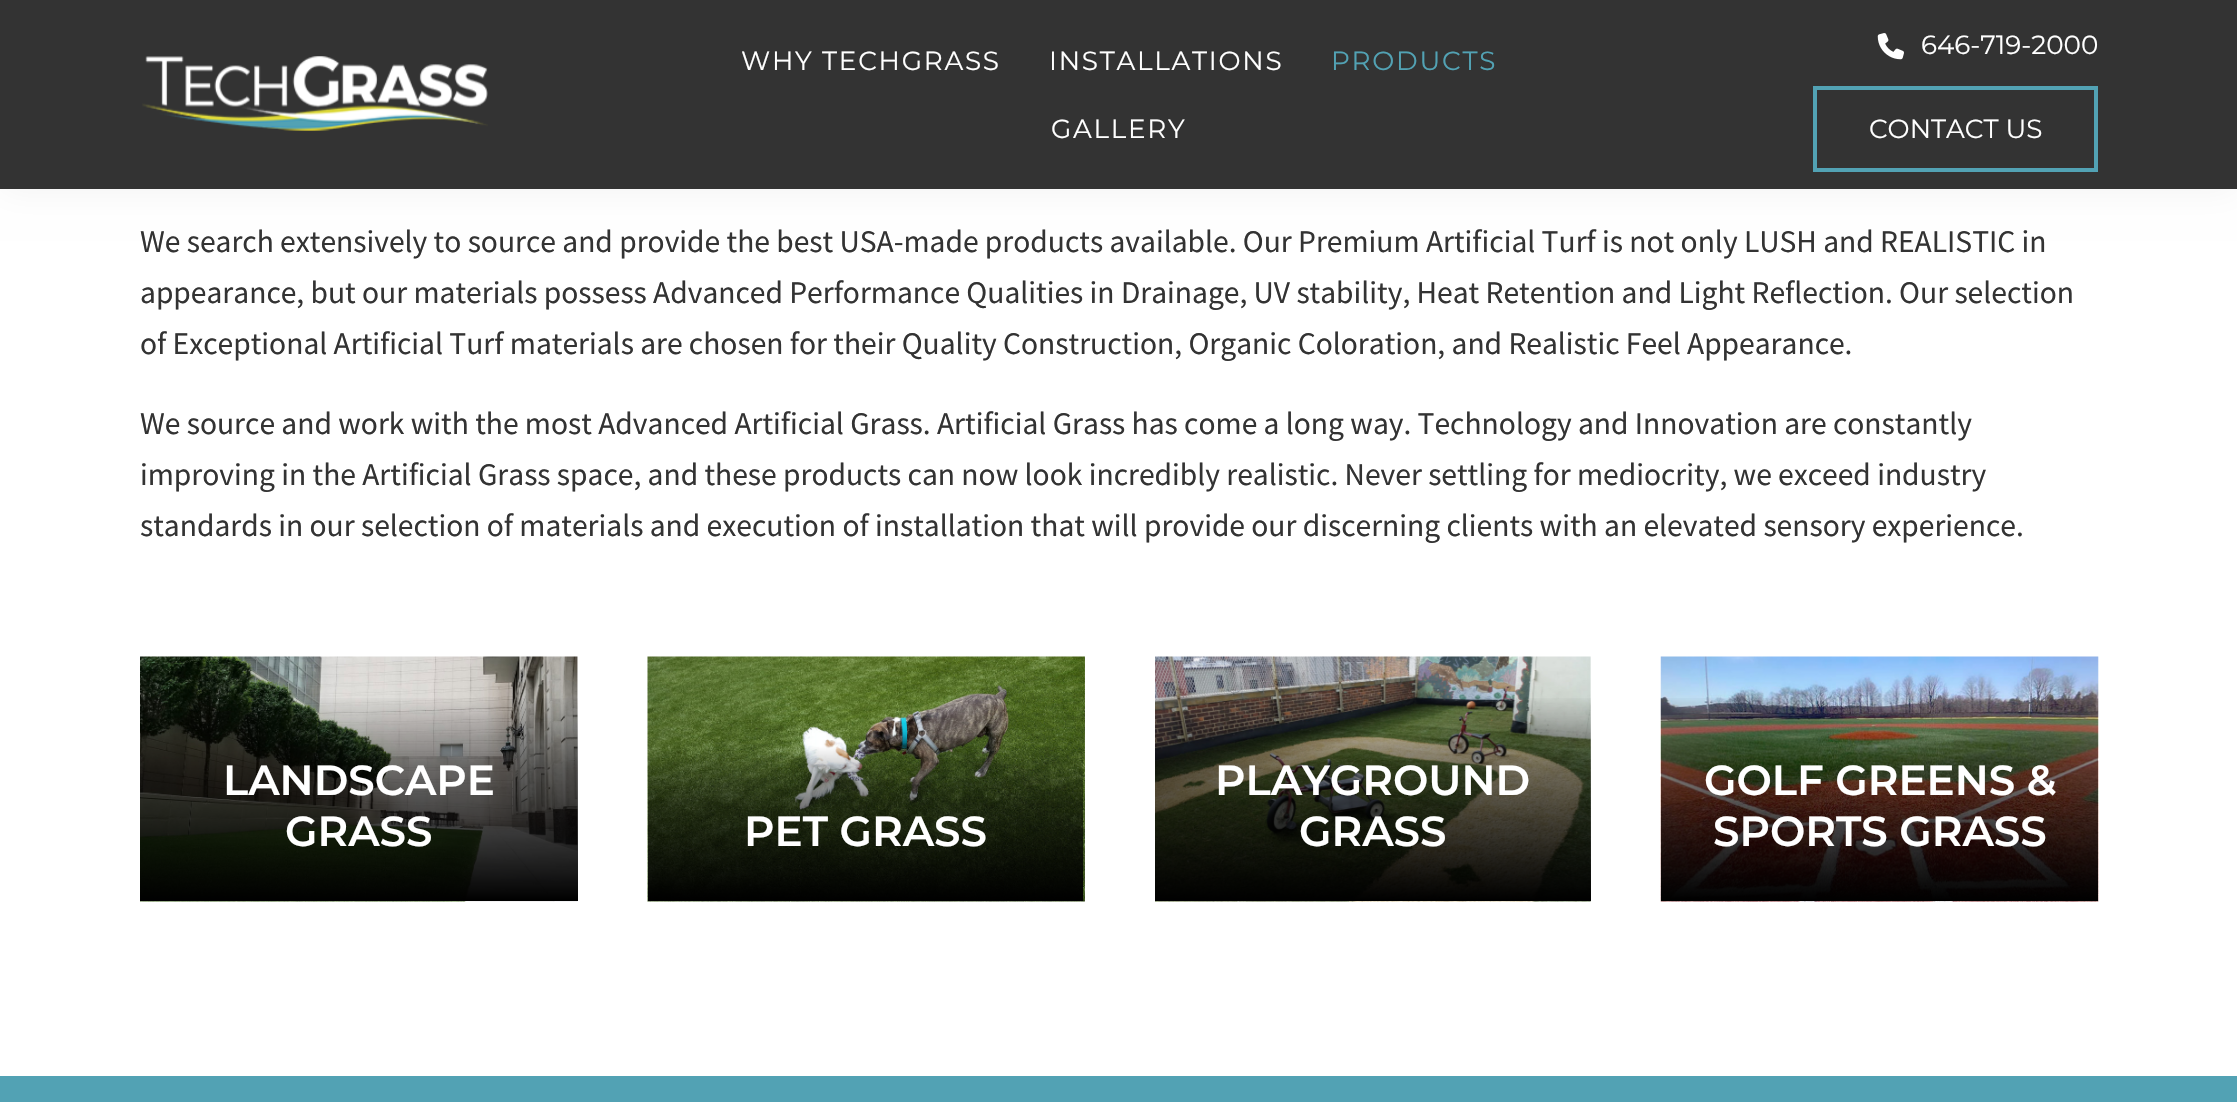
#include "include/core/SkBlurTypes.h"
#include "include/core/SkCanvas.h"
#include "include/core/SkData.h"
#include "include/core/SkFont.h"
#include "include/core/SkFontMgr.h"
#include "include/core/SkImage.h"
#include "include/core/SkMaskFilter.h"
#include "include/core/SkPaint.h"
#include "include/core/SkPathBuilder.h"
#include "include/core/SkTextBlob.h"
#include "include/effects/SkDashPathEffect.h"
#include "include/effects/SkGradientShader.h"
#include "include/utils/SkParsePath.h"

extern sk_sp<SkFontMgr> fontMgr;

void draw(SkCanvas* canvas) {
  SkPaint p;
  p.setAntiAlias(true);
  auto spacedText = [&](const char* s, float x, float y, const SkFont& font, const SkPaint& ink, float letter, float word) {
    std::vector<SkGlyphID> glyphs(font.countText(s, strlen(s), SkTextEncoding::kUTF8));
    std::vector<float> xs(glyphs.size());
    font.textToGlyphs(s, strlen(s), SkTextEncoding::kUTF8, glyphs);
    font.getXPos(glyphs, xs, x);
    float extra = 0;
    for (size_t i = 0; i < glyphs.size(); i++) {
      xs[i] += extra;
      extra += letter + word * (glyphs[i] == font.unicharToGlyph(' '));
    }
    canvas->drawTextBlob(SkTextBlob::MakeFromPosHGlyphs(glyphs, xs, y, font), 0, 0, ink);
  };
  canvas->clear(SK_ColorWHITE);
  p.setColor(SkColorSetARGB(13, 0, 0, 0));
  p.setMaskFilter(SkMaskFilter::MakeBlur(kNormal_SkBlurStyle, 17.5f));
  canvas->drawRect(SkRect::MakeLTRB(0, 0, 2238, 189), p);
  p.setMaskFilter(nullptr);
  p.setColor(SkColorSetRGB(51, 51, 51));
  canvas->drawRect(SkRect::MakeLTRB(0, 0, 2237, 189), p);
  canvas->drawImageRect(SkImages::DeferredFromEncodedData(SkData::MakeFromFileName("images/1.png")), SkRect::MakeLTRB(142, 56, 488, 131), SkSamplingOptions());
  canvas->drawImageRect(SkImages::DeferredFromEncodedData(SkData::MakeFromFileName("images/2.png")), SkRect::MakeLTRB(1877, 33, 1904, 60), SkSamplingOptions());
  p.setStyle(SkPaint::kStroke_Style);
  p.setStrokeWidth(4);
  p.setColor(SkColorSetRGB(82, 162, 180));
  canvas->drawRect(SkRect::MakeLTRB(1815, 88, 2096, 170), p);
  canvas->drawImageRect(SkImages::DeferredFromEncodedData(SkData::MakeFromFileName("images/3.png")), SkRect::MakeLTRB(140, 656, 578, 902), SkSamplingOptions());
  p.setStyle(SkPaint::kFill_Style);
  {
    const SkColor colors[] = {SK_ColorBLACK, SkColorSetARGB(191, 0, 0, 0), SkColorSetARGB(128, 0, 0, 0), SkColorSetARGB(0, 0, 0, 0)};
    const float stops[] = {0, 0.33f, 0.64f, 1};
    const SkPoint ends[] = {{359, 901}, {359, 695}};
    p.setShader(SkGradientShader::MakeLinear(ends, colors, stops, 4, SkTileMode::kClamp));
    p.setAlpha(255);
  }
  canvas->drawRect(SkRect::MakeLTRB(140, 698, 578, 901), p);
  canvas->drawImageRect(SkImages::DeferredFromEncodedData(SkData::MakeFromFileName("images/4.png")), SkRect::MakeLTRB(647, 656, 1085, 902), SkSamplingOptions());
  canvas->drawImageRect(SkImages::DeferredFromEncodedData(SkData::MakeFromFileName("images/5.png")), SkRect::MakeLTRB(1155, 656, 1591, 902), SkSamplingOptions());
  {
    const SkColor colors[] = {SK_ColorBLACK, SkColorSetARGB(191, 0, 0, 0), SkColorSetARGB(128, 0, 0, 0), SkColorSetARGB(0, 0, 0, 0)};
    const float stops[] = {0, 0.33f, 0.64f, 1};
    const SkPoint ends[] = {{1372, 901}, {1372, 695}};
    p.setShader(SkGradientShader::MakeLinear(ends, colors, stops, 4, SkTileMode::kClamp));
    p.setAlpha(255);
  }
  canvas->drawRect(SkRect::MakeLTRB(1155, 698, 1591, 901), p);
  canvas->drawImageRect(SkImages::DeferredFromEncodedData(SkData::MakeFromFileName("images/6.png")), SkRect::MakeLTRB(1660, 656, 2099, 902), SkSamplingOptions());
  {
    const SkColor colors[] = {SK_ColorBLACK, SkColorSetARGB(191, 0, 0, 0), SkColorSetARGB(128, 0, 0, 0), SkColorSetARGB(0, 0, 0, 0)};
    const float stops[] = {0, 0.33f, 0.64f, 1};
    const SkPoint ends[] = {{1880, 901}, {1880, 695}};
    p.setShader(SkGradientShader::MakeLinear(ends, colors, stops, 4, SkTileMode::kClamp));
    p.setAlpha(255);
  }
  canvas->drawRect(SkRect::MakeLTRB(1661, 698, 2098, 901), p);
  p.setShader(nullptr);
  p.setColor(SkColorSetRGB(82, 162, 180));
  canvas->drawRect(SkRect::MakeLTRB(0, 1076, 2237, 1102), p);
  SkFont font1(fontMgr->matchFamilyStyle("Montserrat", SkFontStyle::Normal()), 26.25f);
  font1.setSubpixel(true);
  p.setColor(SK_ColorWHITE);
  spacedText("WHY TECHGRASS", 741, 70, font1, p, 1.75f, 0);
  spacedText("INSTALLATIONS", 1049, 70, font1, p, 1.75f, 0);
  p.setColor(SkColorSetRGB(82, 162, 180));
  spacedText("PRODUCTS", 1331, 70, font1, p, 1.75f, 0);
  p.setColor(SK_ColorWHITE);
  spacedText("GALLERY", 1051, 138, font1, p, 1.75f, 0);
  canvas->drawString("646-719-2000", 1921, 54, font1, p);
  canvas->drawString("CONTACT US", 1869, 138, font1, p);
  SkFont font2(fontMgr->matchFamilyStyle("Source Sans Pro", SkFontStyle::Normal()), 31.5f);
  font2.setSubpixel(true);
  p.setColor(SkColorSetRGB(51, 51, 51));
  canvas->drawString("We search extensively to source and provide the best USA-made products available. Our Premium Artificial Turf is not only LUSH and REALISTIC in", 140, 252, font2, p);
  canvas->drawString("appearance, but our materials possess Advanced Performance Qualities in Drainage, UV stability, Heat Retention and Light Reflection. Our selection", 140, 303, font2, p);
  canvas->drawString("of Exceptional Artificial Turf materials are chosen for their Quality Construction, Organic Coloration, and Realistic Feel Appearance.", 140, 354, font2, p);
  canvas->drawString("We source and work with the most Advanced Artificial Grass. Artificial Grass has come a long way. Technology and Innovation are constantly", 140, 434, font2, p);
  canvas->drawString("improving in the Artificial Grass space, and these products can now look incredibly realistic. Never settling for mediocrity, we exceed industry", 140, 485, font2, p);
  canvas->drawString("standards in our selection of materials and execution of installation that will provide our discerning clients with an elevated sensory experience.", 140, 536, font2, p);
  SkFont font3(fontMgr->matchFamilyStyle("Montserrat", SkFontStyle(600, SkFontStyle::kNormal_Width, SkFontStyle::kUpright_Slant)), 42);
  font3.setSubpixel(true);
  p.setColor(SK_ColorWHITE);
  canvas->drawString("LANDSCAPE", 223, 795, font3, p);
  canvas->drawString("GRASS", 285, 846, font3, p);
  canvas->drawString("PET GRASS", 744, 846, font3, p);
  canvas->drawString("PLAYGROUND", 1215, 795, font3, p);
  canvas->drawString("GRASS", 1299, 846, font3, p);
  canvas->drawString("GOLF GREENS &", 1704, 795, font3, p);
  canvas->drawString("SPORTS GRASS", 1713, 846, font3, p);
}
